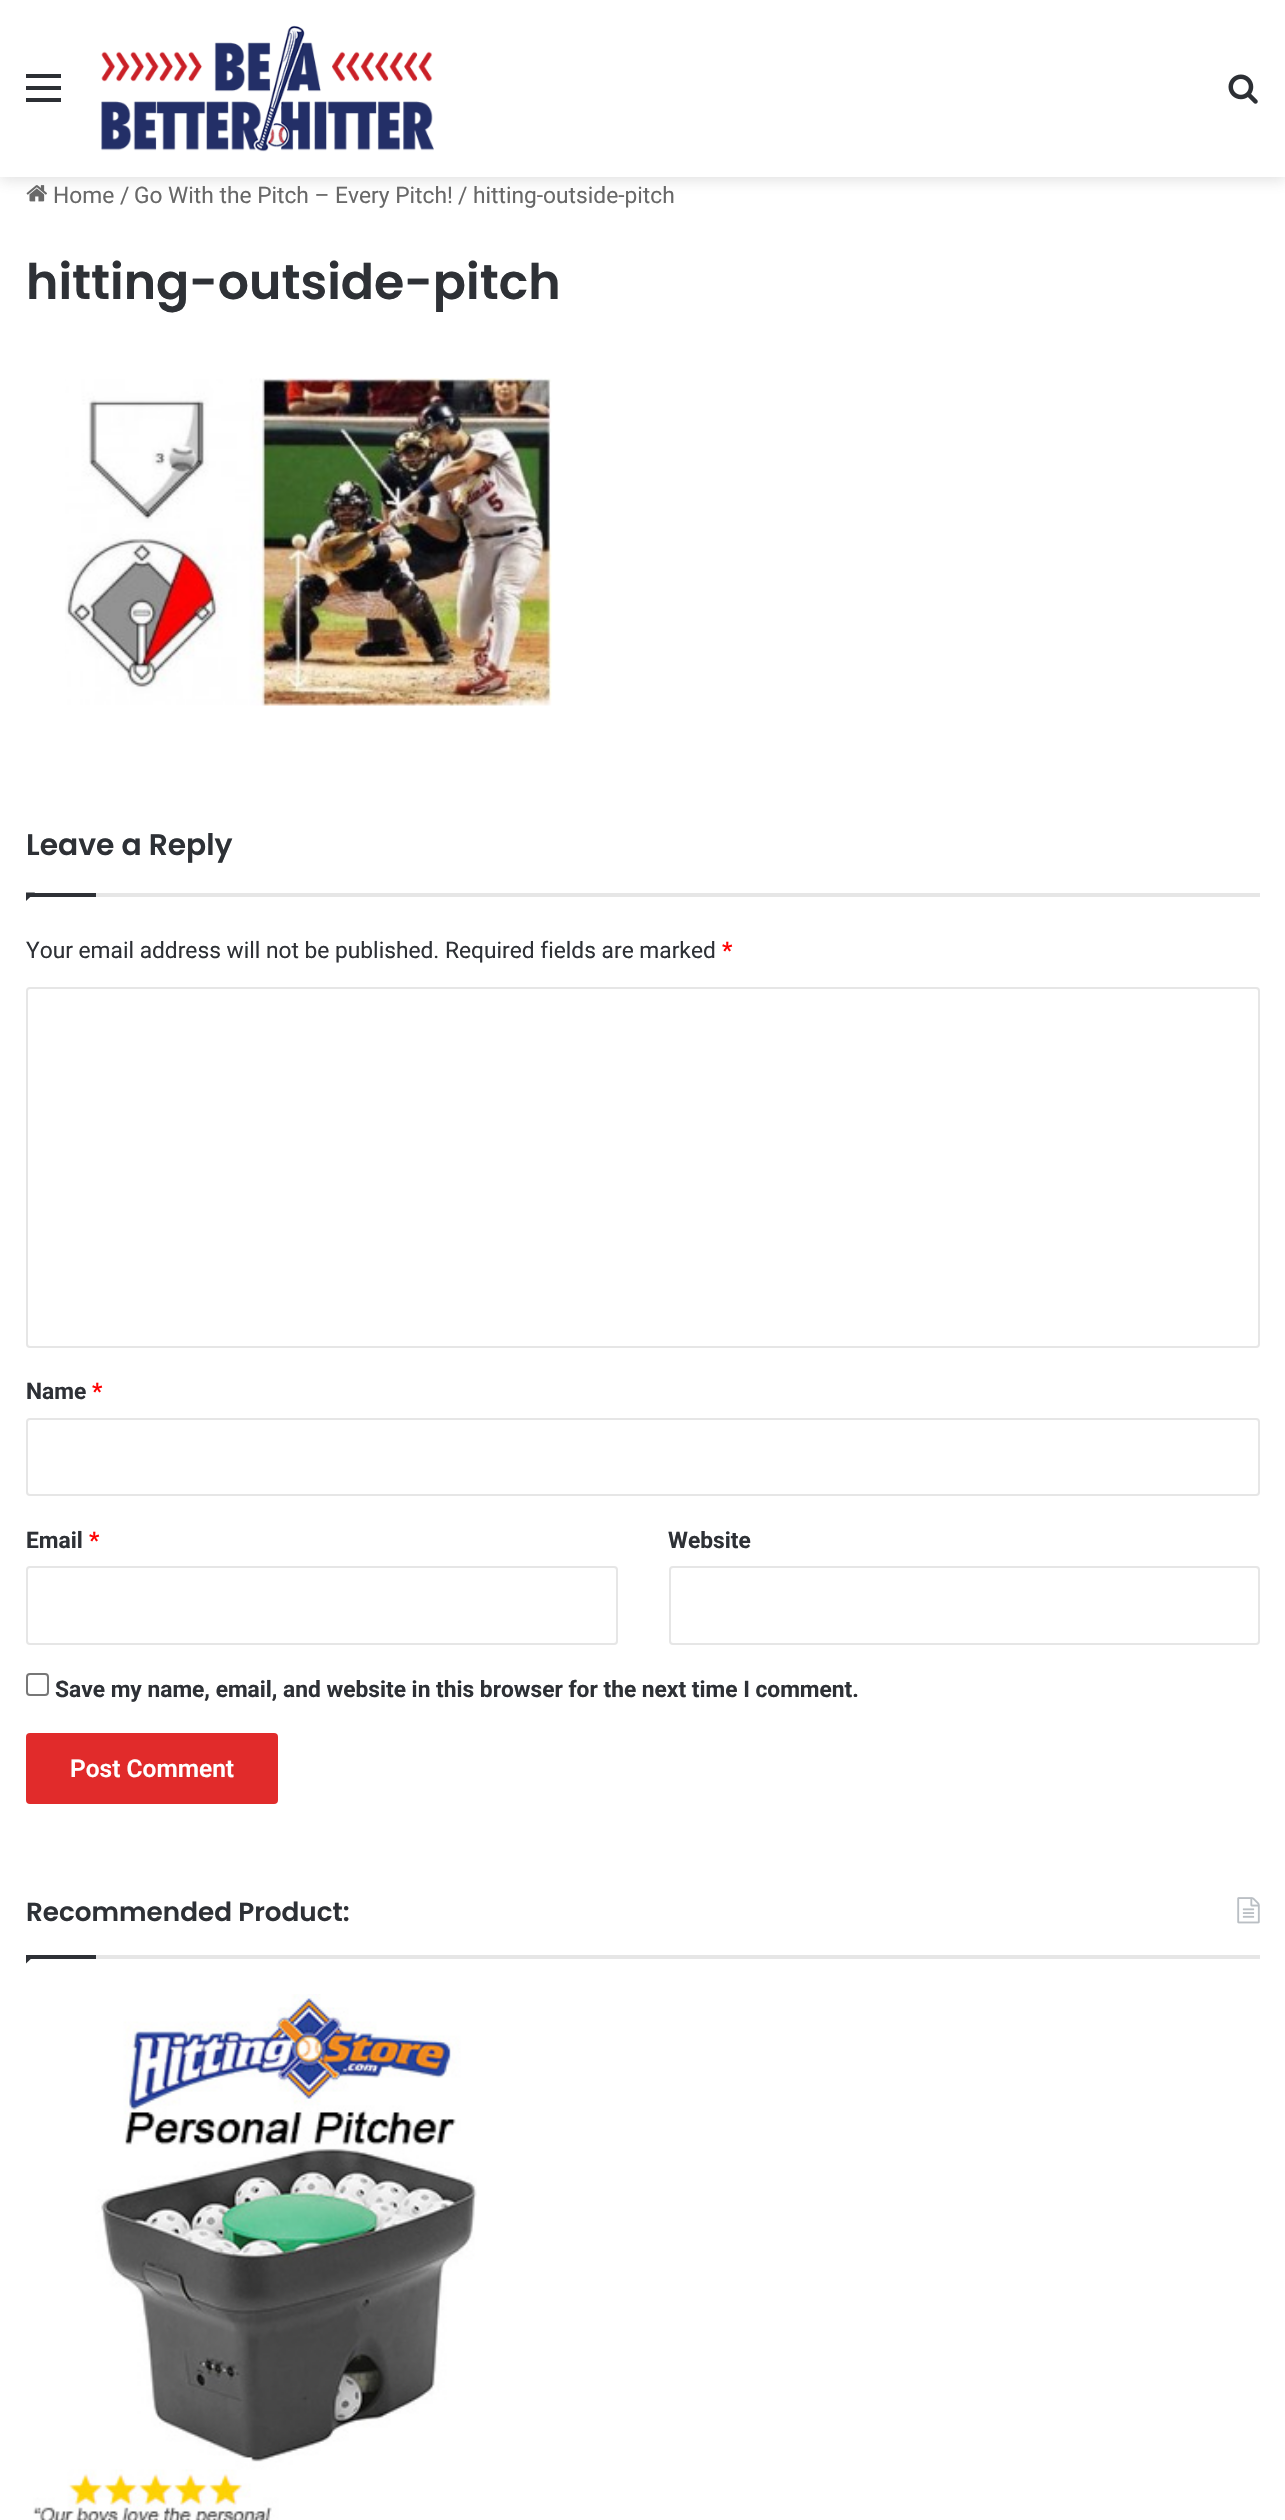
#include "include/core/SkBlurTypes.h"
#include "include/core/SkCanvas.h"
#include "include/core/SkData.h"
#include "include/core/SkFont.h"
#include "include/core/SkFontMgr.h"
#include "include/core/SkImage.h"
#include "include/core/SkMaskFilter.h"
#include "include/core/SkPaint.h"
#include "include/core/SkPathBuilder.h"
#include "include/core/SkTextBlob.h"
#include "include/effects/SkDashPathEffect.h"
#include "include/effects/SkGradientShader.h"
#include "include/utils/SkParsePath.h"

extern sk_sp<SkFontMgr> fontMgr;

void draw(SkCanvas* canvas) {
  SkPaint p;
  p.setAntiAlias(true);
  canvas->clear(SK_ColorWHITE);
  canvas->drawImageRect(SkImages::DeferredFromEncodedData(SkData::MakeFromFileName("images/3.png")), SkRect::MakeLTRB(26, 185, 47, 202), SkSamplingOptions());
  canvas->save();
  canvas->clipPath(SkPathBuilder(SkPathFillType::kEvenOdd).moveTo(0, 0).lineTo(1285, 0).lineTo(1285, 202).lineTo(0, 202).close().moveTo(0, 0).lineTo(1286, 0).lineTo(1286, 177).lineTo(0, 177).close().detach(), true);
  p.setColor(SkColorSetARGB(51, 99, 99, 99));
  p.setMaskFilter(SkMaskFilter::MakeBlur(kNormal_SkBlurStyle, 7));
  canvas->drawRect(SkRect::MakeLTRB(0, 4, 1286, 180), p);
  p.setMaskFilter(nullptr);
  canvas->restore();
  p.setColor(SkColorSetARGB(242, 255, 255, 255));
  canvas->drawRect(SkRect::MakeLTRB(0, 176, 1285, 177), p);
  p.setColor(SkColorSetRGB(44, 47, 52));
  canvas->drawRect(SkRect::MakeLTRB(26, 86, 61, 90), p);
  canvas->drawRect(SkRect::MakeLTRB(26, 74, 61, 78), p);
  canvas->drawRect(SkRect::MakeLTRB(26, 98, 61, 102), p);
  canvas->drawImageRect(SkImages::DeferredFromEncodedData(SkData::MakeFromFileName("images/1.png")), SkRect::MakeLTRB(101, 25, 434, 152), SkSamplingOptions());
  canvas->drawImageRect(SkImages::DeferredFromEncodedData(SkData::MakeFromFileName("images/2.png")), SkRect::MakeLTRB(1228, 74, 1258, 104), SkSamplingOptions());
  canvas->drawImageRect(SkImages::DeferredFromEncodedData(SkData::MakeFromFileName("images/4.png")), SkRect::MakeLTRB(65, 378, 552, 706), SkSamplingOptions());
  p.setColor(SkColorSetRGB(230, 230, 230));
  canvas->drawRect(SkRect::MakeLTRB(96, 893, 1260, 897), p);
  p.setColor(SkColorSetRGB(46, 49, 54));
  canvas->drawPath(SkPathBuilder().moveTo(26, 892.5f).lineTo(35, 892.5f).lineTo(26, 901).close().detach(), p);
  canvas->drawRect(SkRect::MakeLTRB(26, 893, 96, 897), p);
  p.setStyle(SkPaint::kStroke_Style);
  p.setStrokeWidth(2);
  p.setColor(SkColorSetRGB(230, 230, 230));
  canvas->drawRoundRect(SkRect::MakeLTRB(27, 988, 1259, 1347), 3, 3, p);
  canvas->drawRoundRect(SkRect::MakeLTRB(27, 1419, 1259, 1495), 3, 3, p);
  canvas->drawRoundRect(SkRect::MakeLTRB(27, 1567, 617, 1644), 3, 3, p);
  canvas->drawRoundRect(SkRect::MakeLTRB(670, 1567, 1259, 1644), 3, 3, p);
  p.setColor(SkColorSetRGB(119, 119, 119));
  canvas->drawRoundRect(SkRect::MakeLTRB(27, 1674, 48, 1695), 3, 3, p);
  p.setStyle(SkPaint::kFill_Style);
  p.setColor(SkColorSetRGB(225, 43, 43));
  canvas->drawRoundRect(SkRect::MakeLTRB(26, 1733, 278, 1804), 4, 4, p);
  p.setColor(SkColorSetRGB(230, 230, 230));
  canvas->drawRect(SkRect::MakeLTRB(96, 1955, 1260, 1959), p);
  canvas->drawImageRect(SkImages::DeferredFromEncodedData(SkData::MakeFromFileName("images/5.png")), SkRect::MakeLTRB(1237, 1897, 1260, 1924), SkSamplingOptions());
  p.setColor(SkColorSetRGB(46, 49, 54));
  canvas->drawPath(SkPathBuilder().moveTo(26, 1955).lineTo(35, 1955).lineTo(26, 1963.5f).close().detach(), p);
  canvas->drawRect(SkRect::MakeLTRB(26, 1955, 96, 1959), p);
  canvas->drawImageRect(SkImages::DeferredFromEncodedData(SkData::MakeFromFileName("images/6.png")), SkRect::MakeLTRB(33, 1994, 477, 2520), SkSamplingOptions());
  SkFont font1(fontMgr->matchFamilyStyle("Roboto", SkFontStyle::Normal()), 22.75f);
  font1.setSubpixel(true);
  p.setColor(SkColorSetRGB(104, 104, 104));
  canvas->drawString("Home", 53, 203, font1, p);
  canvas->drawString("/", 120, 203, font1, p);
  canvas->drawString("Go With the Pitch – Every Pitch!", 134, 203, font1, p);
  canvas->drawString("/", 458, 203, font1, p);
  canvas->drawString("hitting-outside-pitch", 473, 203, font1, p);
  SkFont font2(fontMgr->matchFamilyStyle("Poppins", SkFontStyle(600, SkFontStyle::kNormal_Width, SkFontStyle::kUpright_Slant)), 49);
  font2.setSubpixel(true);
  p.setColor(SkColorSetRGB(46, 49, 54));
  canvas->drawString("hitting-outside-pitch", 26, 299, font2, p);
  SkFont font3(fontMgr->matchFamilyStyle("Poppins", SkFontStyle(600, SkFontStyle::kNormal_Width, SkFontStyle::kUpright_Slant)), 29.75f);
  font3.setSubpixel(true);
  canvas->drawString("Leave a Reply", 26, 855, font3, p);
  canvas->drawString("Your email address will not be published. Required fields are marked", 26, 958, font1, p);
  SkFont font4(fontMgr->matchFamilyStyle("Roboto", SkFontStyle::Bold()), 22.75f);
  font4.setSubpixel(true);
  p.setColor(SkColorSetRGB(255, 3, 3));
  canvas->drawString("*", 722, 958, font4, p);
  p.setColor(SkColorSetRGB(46, 49, 54));
  canvas->drawString("Name", 26, 1399, font4, p);
  p.setColor(SkColorSetRGB(255, 3, 3));
  canvas->drawString("*", 92, 1399, font4, p);
  p.setColor(SkColorSetRGB(46, 49, 54));
  canvas->drawString("Email", 26, 1548, font4, p);
  p.setColor(SkColorSetRGB(255, 3, 3));
  canvas->drawString("*", 89, 1548, font4, p);
  p.setColor(SkColorSetRGB(46, 49, 54));
  canvas->drawString("Website", 668, 1548, font4, p);
  canvas->drawString("Save my name, email, and website in this browser for the next time I comment.", 55, 1697, font4, p);
  SkFont font5(fontMgr->matchFamilyStyle("Roboto", SkFontStyle(600, SkFontStyle::kNormal_Width, SkFontStyle::kUpright_Slant)), 24.5f);
  font5.setSubpixel(true);
  p.setColor(SK_ColorWHITE);
  canvas->drawString("Post Comment", 70, 1777, font5, p);
  SkFont font6(fontMgr->matchFamilyStyle("Poppins", SkFontStyle(600, SkFontStyle::kNormal_Width, SkFontStyle::kUpright_Slant)), 26.25f);
  font6.setSubpixel(true);
  p.setColor(SkColorSetRGB(46, 49, 54));
  canvas->drawString("Recommended Product:", 26, 1921, font6, p);
}
